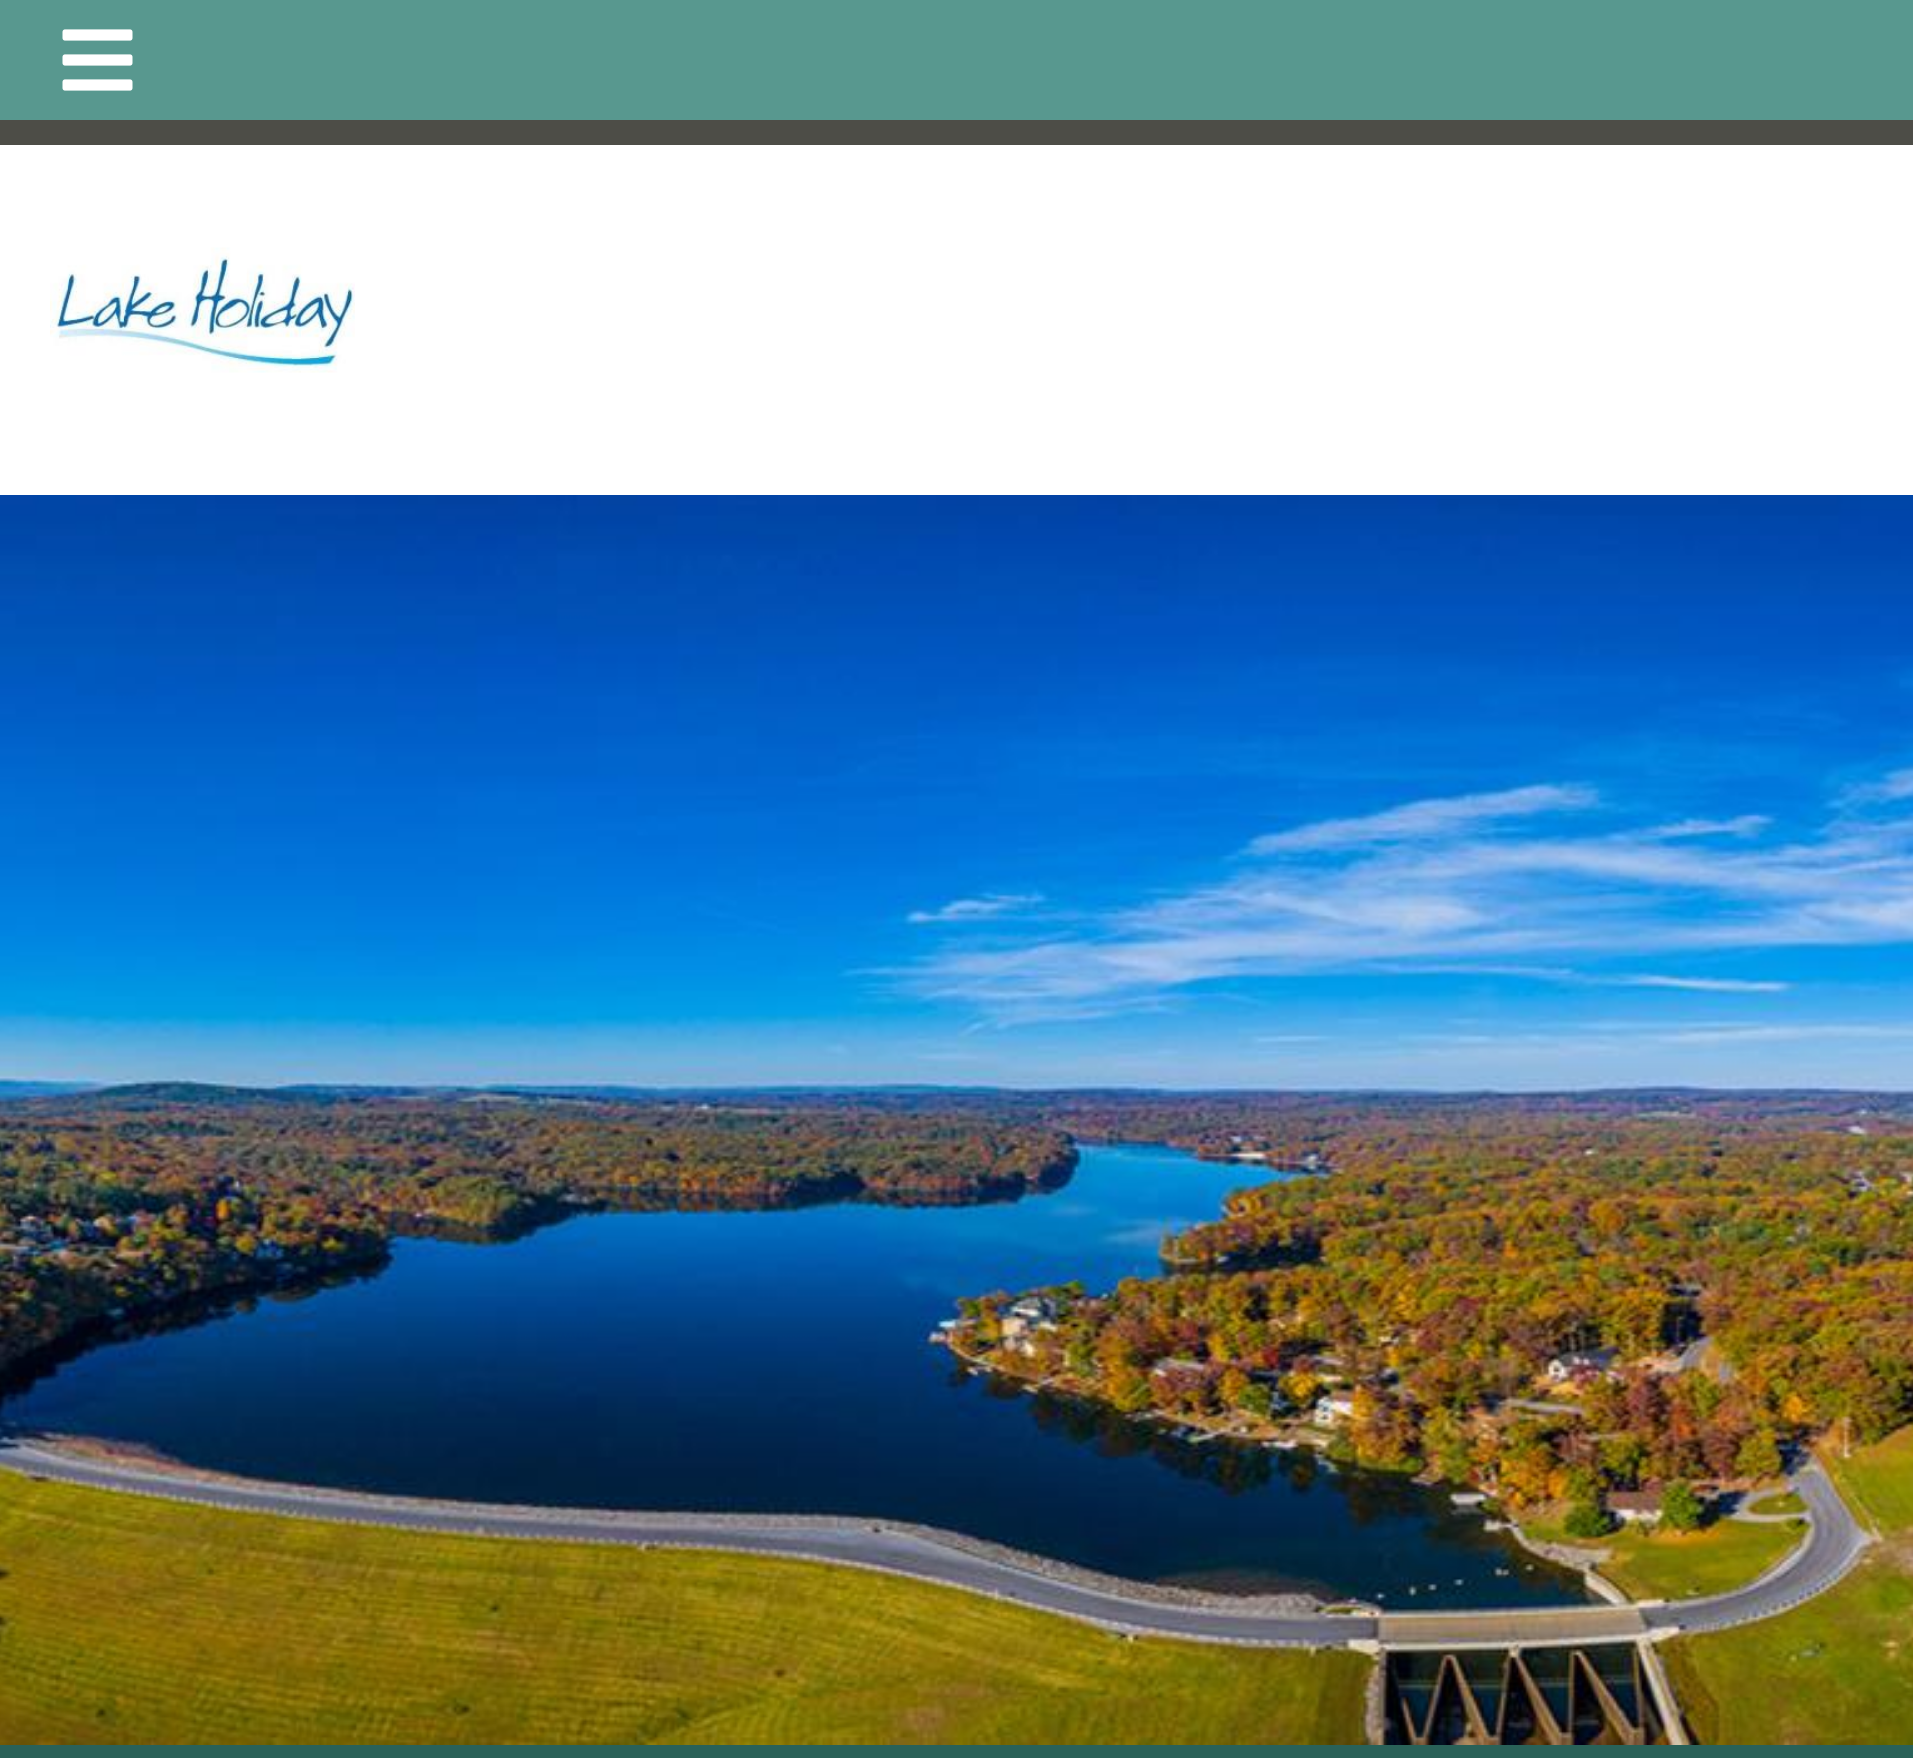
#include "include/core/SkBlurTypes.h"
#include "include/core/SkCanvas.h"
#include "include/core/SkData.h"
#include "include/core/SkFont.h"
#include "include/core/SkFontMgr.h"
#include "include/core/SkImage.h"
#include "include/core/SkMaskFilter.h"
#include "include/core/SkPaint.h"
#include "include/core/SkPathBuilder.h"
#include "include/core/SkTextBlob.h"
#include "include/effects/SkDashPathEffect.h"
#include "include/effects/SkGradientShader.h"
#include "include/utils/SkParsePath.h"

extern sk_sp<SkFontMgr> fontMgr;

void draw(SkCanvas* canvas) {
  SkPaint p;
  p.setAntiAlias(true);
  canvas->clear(SkColorSetRGB(88, 152, 143));
  canvas->drawImageRect(SkImages::DeferredFromEncodedData(SkData::MakeFromFileName("images/1.png")), SkRect::MakeLTRB(62, 29, 133, 91), SkSamplingOptions());
  p.setColor(SK_ColorWHITE);
  canvas->drawRect(SkRect::MakeLTRB(0, 145, 1913, 495), p);
  p.setColor(SkColorSetRGB(77, 77, 71));
  canvas->drawRect(SkRect::MakeLTRB(0, 120, 1913, 145), p);
  canvas->drawImageRect(SkImages::DeferredFromEncodedData(SkData::MakeFromFileName("images/2.png")), SkRect::MakeLTRB(50, 247, 355, 373), SkSamplingOptions());
  canvas->drawImageRect(SkImages::DeferredFromEncodedData(SkData::MakeFromFileName("images/3.png")), SkRect::MakeLTRB(0, 495, 1913, 1745), SkSamplingOptions());
  p.setColor(SkColorSetRGB(41, 97, 88));
  canvas->drawRect(SkRect::MakeLTRB(0, 1745, 1913, 1758), p);
}
